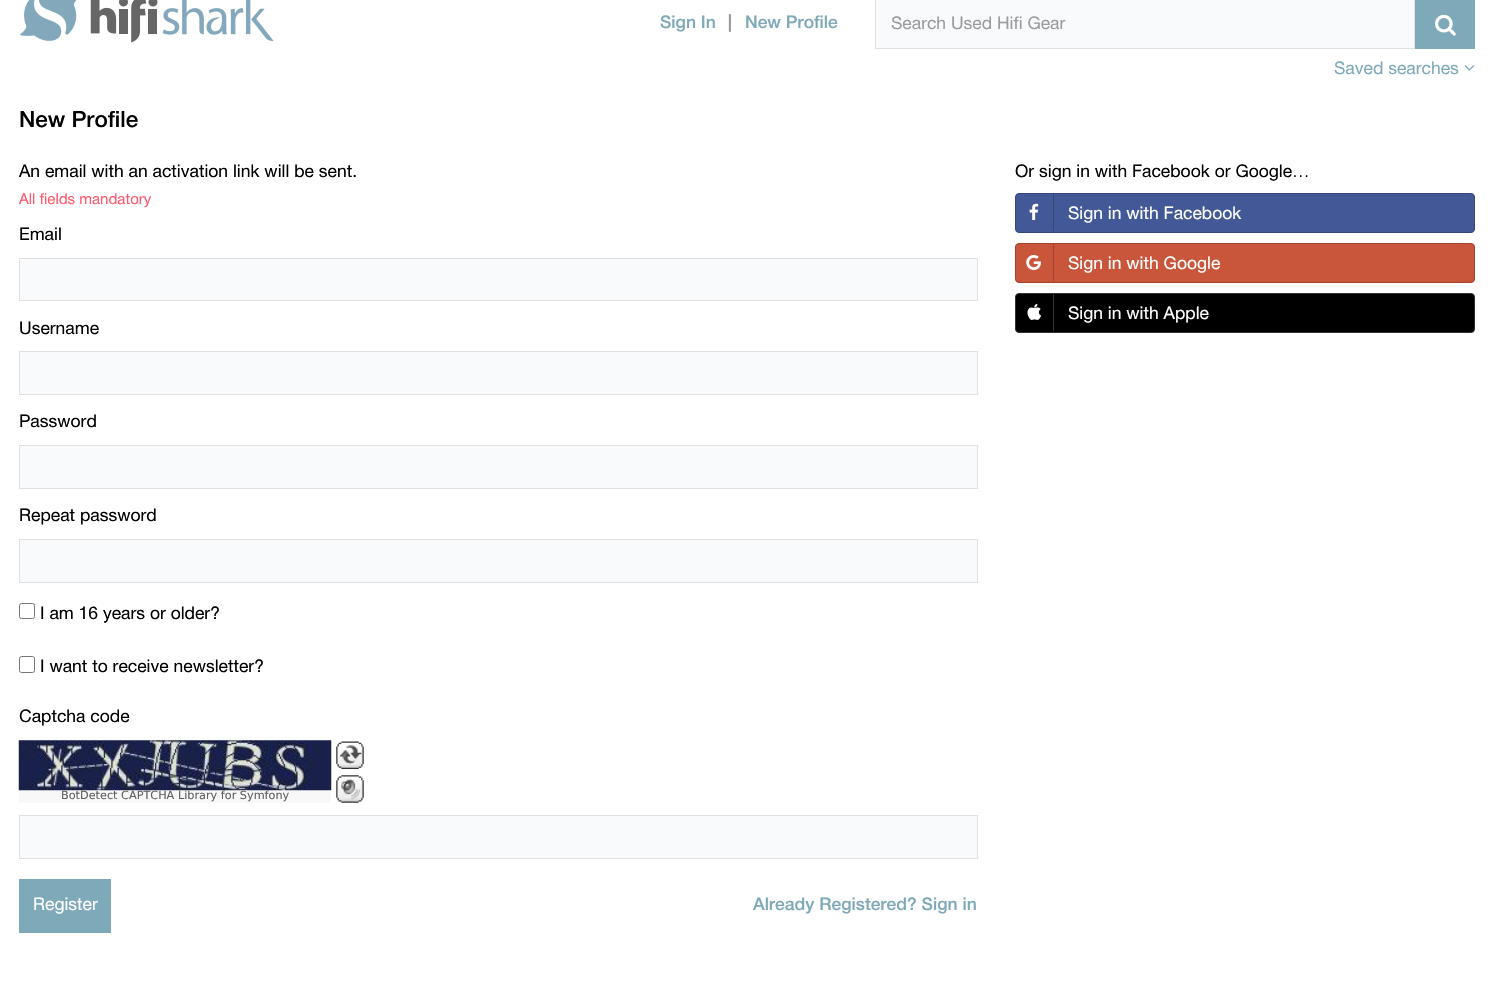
#include "include/core/SkBlurTypes.h"
#include "include/core/SkCanvas.h"
#include "include/core/SkData.h"
#include "include/core/SkFont.h"
#include "include/core/SkFontMgr.h"
#include "include/core/SkImage.h"
#include "include/core/SkMaskFilter.h"
#include "include/core/SkPaint.h"
#include "include/core/SkPathBuilder.h"
#include "include/core/SkTextBlob.h"
#include "include/effects/SkDashPathEffect.h"
#include "include/effects/SkGradientShader.h"
#include "include/utils/SkParsePath.h"

extern sk_sp<SkFontMgr> fontMgr;

void draw(SkCanvas* canvas) {
  SkPaint p;
  p.setAntiAlias(true);
  canvas->clear(SK_ColorWHITE);
  canvas->drawImageRect(SkImages::DeferredFromEncodedData(SkData::MakeFromFileName("images/1.png")), SkRect::MakeLTRB(20, 0, 274, 43), SkSamplingOptions());
  p.setColor(SkColorSetRGB(248, 250, 251));
  canvas->drawRect(SkRect::MakeLTRB(875.5f, -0.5f, 1414.5f, 48.5f), p);
  p.setStyle(SkPaint::kStroke_Style);
  p.setStrokeWidth(1);
  p.setColor(SkColorSetRGB(224, 224, 224));
  canvas->drawRect(SkRect::MakeLTRB(875.5f, -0.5f, 1414.5f, 48.5f), p);
  p.setStyle(SkPaint::kFill_Style);
  p.setColor(SkColorSetRGB(126, 169, 184));
  canvas->drawRect(SkRect::MakeLTRB(1415, 0, 1475, 49), p);
  canvas->drawImageRect(SkImages::DeferredFromEncodedData(SkData::MakeFromFileName("images/2.png")), SkRect::MakeLTRB(1435, 14, 1456, 36), SkSamplingOptions());
  canvas->drawImageRect(SkImages::DeferredFromEncodedData(SkData::MakeFromFileName("images/3.png")), SkRect::MakeLTRB(1464, 65, 1475, 71), SkSamplingOptions());
  p.setColor(SkColorSetRGB(248, 250, 251));
  canvas->drawRect(SkRect::MakeLTRB(19.5f, 258.5f, 977.5f, 300.5f), p);
  p.setStyle(SkPaint::kStroke_Style);
  p.setColor(SkColorSetRGB(224, 224, 224));
  canvas->drawRect(SkRect::MakeLTRB(19.5f, 258.5f, 977.5f, 300.5f), p);
  p.setStyle(SkPaint::kFill_Style);
  p.setColor(SkColorSetRGB(248, 250, 251));
  canvas->drawRect(SkRect::MakeLTRB(19.5f, 351.5f, 977.5f, 394.5f), p);
  p.setStyle(SkPaint::kStroke_Style);
  p.setColor(SkColorSetRGB(224, 224, 224));
  canvas->drawRect(SkRect::MakeLTRB(19.5f, 351.5f, 977.5f, 394.5f), p);
  p.setStyle(SkPaint::kFill_Style);
  p.setColor(SkColorSetRGB(248, 250, 251));
  canvas->drawRect(SkRect::MakeLTRB(19.5f, 445.5f, 977.5f, 488.5f), p);
  p.setStyle(SkPaint::kStroke_Style);
  p.setColor(SkColorSetRGB(224, 224, 224));
  canvas->drawRect(SkRect::MakeLTRB(19.5f, 445.5f, 977.5f, 488.5f), p);
  p.setStyle(SkPaint::kFill_Style);
  p.setColor(SkColorSetRGB(248, 250, 251));
  canvas->drawRect(SkRect::MakeLTRB(19.5f, 539.5f, 977.5f, 582.5f), p);
  p.setStyle(SkPaint::kStroke_Style);
  p.setColor(SkColorSetRGB(224, 224, 224));
  canvas->drawRect(SkRect::MakeLTRB(19.5f, 539.5f, 977.5f, 582.5f), p);
  p.setColor(SkColorSetRGB(118, 118, 118));
  canvas->drawRoundRect(SkRect::MakeLTRB(19.5f, 603.5f, 34.5f, 618.5f), 2, 2, p);
  canvas->drawRoundRect(SkRect::MakeLTRB(19.5f, 656.5f, 34.5f, 672.5f), 2, 2, p);
  p.setStyle(SkPaint::kFill_Style);
  p.setColor(SkColorSetRGB(248, 248, 248));
  canvas->drawRect(SkRect::MakeLTRB(19, 790, 331, 803), p);
  canvas->drawImageRect(SkImages::DeferredFromEncodedData(SkData::MakeFromFileName("images/4.png")), SkRect::MakeLTRB(18, 740, 332, 791), SkSamplingOptions());
  canvas->drawImageRect(SkImages::DeferredFromEncodedData(SkData::MakeFromFileName("images/5.png")), SkRect::MakeLTRB(336, 741, 364, 769), SkSamplingOptions());
  canvas->drawImageRect(SkImages::DeferredFromEncodedData(SkData::MakeFromFileName("images/6.png")), SkRect::MakeLTRB(336, 775, 364, 803), SkSamplingOptions());
  p.setColor(SkColorSetRGB(248, 250, 251));
  canvas->drawRect(SkRect::MakeLTRB(19.5f, 815.5f, 977.5f, 858.5f), p);
  p.setStyle(SkPaint::kStroke_Style);
  p.setColor(SkColorSetRGB(224, 224, 224));
  canvas->drawRect(SkRect::MakeLTRB(19.5f, 815.5f, 977.5f, 858.5f), p);
  p.setStyle(SkPaint::kFill_Style);
  p.setColor(SkColorSetRGB(126, 169, 184));
  canvas->drawRect(SkRect::MakeLTRB(19, 879, 111, 933), p);
  p.setColor(SkColorSetRGB(67, 88, 150));
  canvas->drawRoundRect(SkRect::MakeLTRB(1015.5f, 193.5f, 1474.5f, 232.5f), 3.5f, 3.5f, p);
  p.setStyle(SkPaint::kStroke_Style);
  p.setColor(SkColorSetRGB(53, 70, 119));
  canvas->drawRoundRect(SkRect::MakeLTRB(1015.5f, 193.5f, 1474.5f, 232.5f), 3.5f, 3.5f, p);
  p.setStyle(SkPaint::kFill_Style);
  canvas->drawRect(SkRect::MakeLTRB(1053, 194, 1054, 231), p);
  canvas->drawImageRect(SkImages::DeferredFromEncodedData(SkData::MakeFromFileName("images/7.png")), SkRect::MakeLTRB(1029, 203, 1039, 220), SkSamplingOptions());
  p.setColor(SkColorSetRGB(201, 85, 59));
  canvas->drawRoundRect(SkRect::MakeLTRB(1015.5f, 243.5f, 1474.5f, 282.5f), 3.5f, 3.5f, p);
  p.setStyle(SkPaint::kStroke_Style);
  p.setColor(SkColorSetRGB(159, 66, 47));
  canvas->drawRoundRect(SkRect::MakeLTRB(1015.5f, 243.5f, 1474.5f, 282.5f), 3.5f, 3.5f, p);
  p.setStyle(SkPaint::kFill_Style);
  canvas->drawRect(SkRect::MakeLTRB(1053, 244, 1054, 281), p);
  canvas->drawImageRect(SkImages::DeferredFromEncodedData(SkData::MakeFromFileName("images/8.png")), SkRect::MakeLTRB(1026, 255, 1041, 270), SkSamplingOptions());
  p.setColor(SK_ColorBLACK);
  canvas->drawRoundRect(SkRect::MakeLTRB(1015.5f, 293.5f, 1474.5f, 332.5f), 3.5f, 3.5f, p);
  p.setStyle(SkPaint::kStroke_Style);
  p.setColor(SkColorSetRGB(51, 51, 51));
  canvas->drawRoundRect(SkRect::MakeLTRB(1015.5f, 293.5f, 1474.5f, 332.5f), 3.5f, 3.5f, p);
  p.setStyle(SkPaint::kFill_Style);
  canvas->drawRect(SkRect::MakeLTRB(1053, 294, 1054, 331), p);
  canvas->drawImageRect(SkImages::DeferredFromEncodedData(SkData::MakeFromFileName("images/9.png")), SkRect::MakeLTRB(1027, 303, 1041, 320), SkSamplingOptions());
  SkFont font1(fontMgr->matchFamilyStyle("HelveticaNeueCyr", SkFontStyle(500, SkFontStyle::kNormal_Width, SkFontStyle::kUpright_Slant)), 17.5f);
  font1.setSubpixel(true);
  p.setColor(SkColorSetRGB(126, 169, 184));
  canvas->drawString("Sign In", 660, 28, font1, p);
  SkFont font2(fontMgr->matchFamilyStyle("HelveticaNeueCyr", SkFontStyle::Bold()), 17.5f);
  font2.setSubpixel(true);
  p.setColor(SkColorSetRGB(155, 155, 155));
  canvas->drawString("|", 728, 28, font2, p);
  p.setColor(SkColorSetRGB(126, 169, 184));
  canvas->drawString("New Profile", 745, 28, font1, p);
  SkFont font3(fontMgr->matchFamilyStyle("HelveticaNeueCyr", SkFontStyle::Normal()), 17.5f);
  font3.setSubpixel(true);
  p.setColor(SkColorSetRGB(155, 155, 155));
  canvas->drawString("Search Used Hifi Gear", 891, 29, font3, p);
  p.setColor(SkColorSetRGB(126, 169, 184));
  canvas->drawString("Saved searches", 1334, 74, font3, p);
  SkFont font4(fontMgr->matchFamilyStyle("HelveticaNeueCyr", SkFontStyle(500, SkFontStyle::kNormal_Width, SkFontStyle::kUpright_Slant)), 22.5f);
  font4.setSubpixel(true);
  p.setColor(SK_ColorBLACK);
  canvas->drawString("New Profile", 19, 127, font4, p);
  canvas->drawString("An email with an activation link will be sent.", 19, 177, font3, p);
  SkFont font5(fontMgr->matchFamilyStyle("HelveticaNeueCyr", SkFontStyle::Normal()), 15);
  font5.setSubpixel(true);
  p.setColor(SkColorSetRGB(255, 88, 108));
  canvas->drawString("All fields mandatory", 19, 204, font5, p);
  p.setColor(SK_ColorBLACK);
  canvas->drawString("Email", 19, 240, font3, p);
  canvas->drawString("Username", 19, 334, font3, p);
  canvas->drawString("Password", 19, 427, font3, p);
  canvas->drawString("Repeat password", 19, 521, font3, p);
  canvas->drawString("I am 16 years or older?", 40, 619, font3, p);
  canvas->drawString("I want to receive newsletter?", 40, 672, font3, p);
  canvas->drawString("Captcha code", 19, 722, font3, p);
  SkFont font6(fontMgr->matchFamilyStyle("DejaVu Sans", SkFontStyle::Normal()), 11.25f);
  font6.setSubpixel(true);
  p.setColor(SkColorSetRGB(96, 96, 96));
  canvas->drawString("BotDetect CAPTCHA Library for Symfony", 61, 799, font6, p);
  p.setColor(SK_ColorWHITE);
  canvas->drawString("Register", 33, 910, font3, p);
  p.setColor(SkColorSetRGB(126, 169, 184));
  canvas->drawString("Already Registered? Sign in", 753, 910, font1, p);
  p.setColor(SK_ColorBLACK);
  canvas->drawString("Or sign in with Facebook or Google…", 1015, 177, font3, p);
  p.setColor(SK_ColorWHITE);
  canvas->drawString("Sign in with Facebook", 1068, 219, font3, p);
  canvas->drawString("Sign in with Google", 1068, 269, font3, p);
  canvas->drawString("Sign in with Apple", 1068, 319, font3, p);
}
